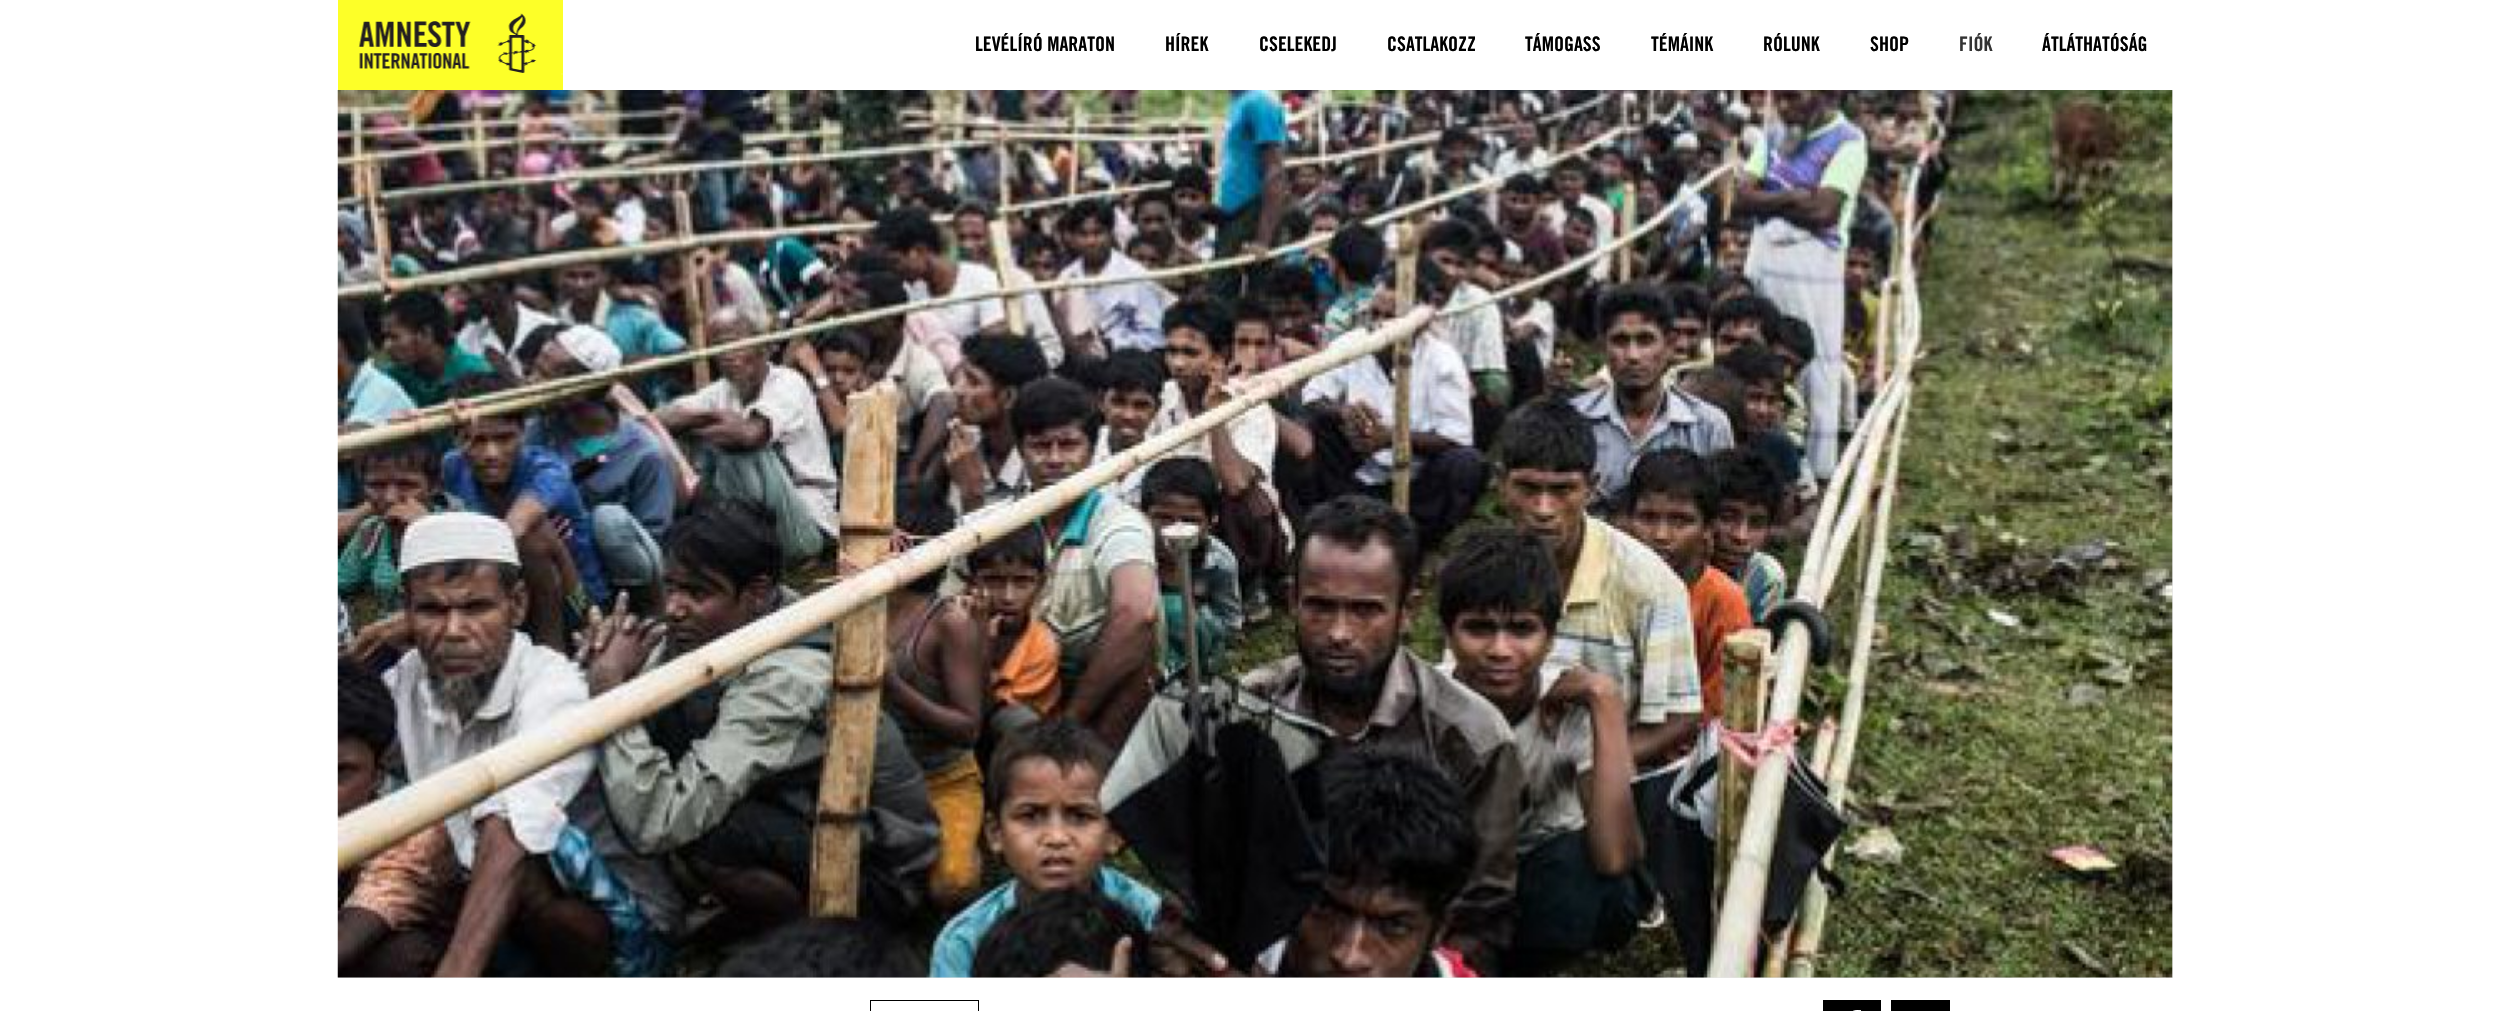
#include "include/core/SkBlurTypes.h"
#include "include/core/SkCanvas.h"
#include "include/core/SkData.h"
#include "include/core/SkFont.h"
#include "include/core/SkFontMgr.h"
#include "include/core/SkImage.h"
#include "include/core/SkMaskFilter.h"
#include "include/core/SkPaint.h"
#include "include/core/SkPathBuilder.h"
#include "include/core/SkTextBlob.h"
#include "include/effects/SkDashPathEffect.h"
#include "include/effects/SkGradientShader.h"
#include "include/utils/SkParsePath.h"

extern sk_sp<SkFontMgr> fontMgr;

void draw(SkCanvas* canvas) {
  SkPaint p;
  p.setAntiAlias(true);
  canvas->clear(SK_ColorWHITE);
  p.setColor(SkColorSetRGB(253, 255, 40));
  canvas->drawRect(SkRect::MakeLTRB(338, 0, 563, 90), p);
  canvas->drawImageRect(SkImages::DeferredFromEncodedData(SkData::MakeFromFileName("images/1.png")), SkRect::MakeLTRB(358, 13, 563, 75), SkSamplingOptions());
  p.setColor(SkColorSetRGB(231, 231, 231));
  canvas->drawRect(SkRect::MakeLTRB(338, 90, 2173, 978), p);
  canvas->drawImageRect(SkImages::DeferredFromEncodedData(SkData::MakeFromFileName("images/2.png")), SkRect::MakeLTRB(337, 90, 2173, 978), SkSamplingOptions());
  p.setStyle(SkPaint::kStroke_Style);
  p.setStrokeWidth(1);
  p.setColor(SK_ColorBLACK);
  canvas->drawRect(SkRect::MakeLTRB(870.5f, 1000.5f, 978.5f, 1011.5f), p);
  p.setStyle(SkPaint::kFill_Style);
  canvas->drawRect(SkRect::MakeLTRB(1823, 1000, 1881, 1011), p);
  canvas->drawImageRect(SkImages::DeferredFromEncodedData(SkData::MakeFromFileName("images/3.png")), SkRect::MakeLTRB(1853, 1010, 1861, 1011), SkSamplingOptions());
  canvas->drawRect(SkRect::MakeLTRB(1891, 1000, 1950, 1011), p);
  SkFont font1(fontMgr->matchFamilyStyle("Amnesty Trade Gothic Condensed", SkFontStyle::Bold()), 20);
  font1.setSubpixel(true);
  canvas->drawString("LEVÉLÍRÓ MARATON", 975, 51, font1, p);
  canvas->drawString("HÍREK", 1165, 51, font1, p);
  canvas->drawString("CSELEKEDJ", 1259, 51, font1, p);
  canvas->drawString("CSATLAKOZZ", 1387, 51, font1, p);
  canvas->drawString("TÁMOGASS", 1525, 51, font1, p);
  canvas->drawString("TÉMÁINK", 1651, 51, font1, p);
  canvas->drawString("RÓLUNK", 1763, 51, font1, p);
  canvas->drawString("SHOP", 1870, 51, font1, p);
  p.setColor(SkColorSetRGB(51, 51, 51));
  canvas->drawString("FIÓK", 1959, 51, font1, p);
  p.setColor(SK_ColorBLACK);
  canvas->drawString("ÁTLÁTHATÓSÁG", 2042, 51, font1, p);
}
